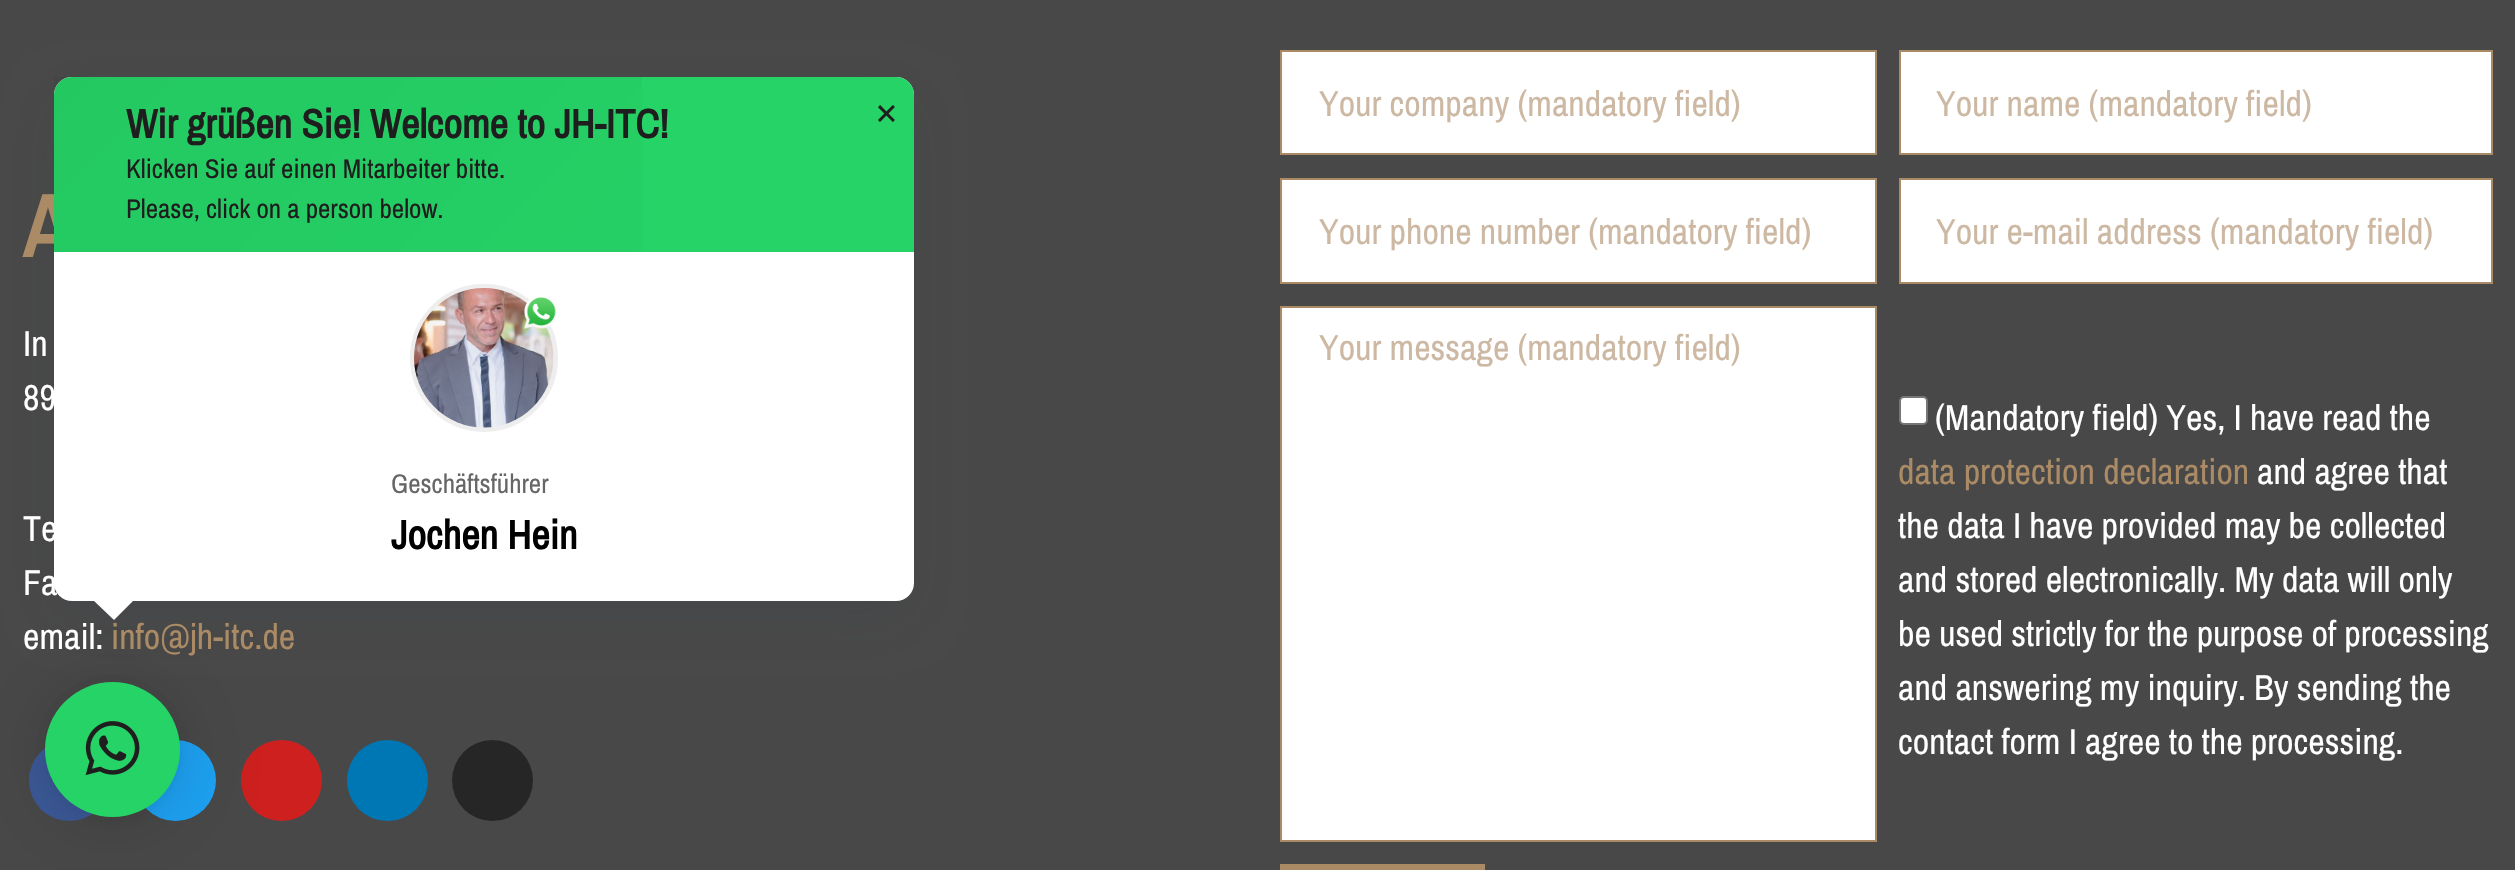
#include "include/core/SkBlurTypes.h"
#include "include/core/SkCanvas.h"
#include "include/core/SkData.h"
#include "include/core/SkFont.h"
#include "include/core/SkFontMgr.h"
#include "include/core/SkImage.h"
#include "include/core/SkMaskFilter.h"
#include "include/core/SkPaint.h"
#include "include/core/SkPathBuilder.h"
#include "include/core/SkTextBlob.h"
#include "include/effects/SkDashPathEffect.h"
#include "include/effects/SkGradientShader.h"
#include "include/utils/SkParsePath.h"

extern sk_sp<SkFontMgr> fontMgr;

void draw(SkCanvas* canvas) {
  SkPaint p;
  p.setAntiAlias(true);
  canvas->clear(SkColorSetRGB(72, 72, 72));
  p.setColor(SkColorSetRGB(59, 89, 152));
  canvas->drawCircle(69.5f, 780.5f, 40.5f, p);
  p.setColor(SkColorSetRGB(29, 161, 242));
  canvas->drawCircle(175.5f, 780.5f, 40.5f, p);
  p.setColor(SkColorSetRGB(205, 32, 31));
  canvas->drawCircle(281.5f, 780.5f, 40.5f, p);
  p.setColor(SkColorSetRGB(0, 119, 181));
  canvas->drawCircle(387.5f, 780.5f, 40.5f, p);
  p.setColor(SkColorSetRGB(38, 38, 38));
  canvas->drawCircle(492.5f, 780.5f, 40.5f, p);
  p.setColor(SK_ColorWHITE);
  canvas->drawRect(SkRect::MakeLTRB(1281, 51, 1876, 154), p);
  p.setStyle(SkPaint::kStroke_Style);
  p.setStrokeWidth(2);
  p.setColor(SkColorSetRGB(171, 139, 101));
  canvas->drawRect(SkRect::MakeLTRB(1281, 51, 1876, 154), p);
  p.setStyle(SkPaint::kFill_Style);
  p.setColor(SK_ColorWHITE);
  canvas->drawRect(SkRect::MakeLTRB(1900, 51, 2492, 154), p);
  p.setStyle(SkPaint::kStroke_Style);
  p.setColor(SkColorSetRGB(171, 139, 101));
  canvas->drawRect(SkRect::MakeLTRB(1900, 51, 2492, 154), p);
  p.setStyle(SkPaint::kFill_Style);
  p.setColor(SK_ColorWHITE);
  canvas->drawRect(SkRect::MakeLTRB(1281, 179, 1876, 283), p);
  p.setStyle(SkPaint::kStroke_Style);
  p.setColor(SkColorSetRGB(171, 139, 101));
  canvas->drawRect(SkRect::MakeLTRB(1281, 179, 1876, 283), p);
  p.setStyle(SkPaint::kFill_Style);
  p.setColor(SK_ColorWHITE);
  canvas->drawRect(SkRect::MakeLTRB(1900, 179, 2492, 283), p);
  p.setStyle(SkPaint::kStroke_Style);
  p.setColor(SkColorSetRGB(171, 139, 101));
  canvas->drawRect(SkRect::MakeLTRB(1900, 179, 2492, 283), p);
  p.setStyle(SkPaint::kFill_Style);
  p.setColor(SK_ColorWHITE);
  canvas->drawRect(SkRect::MakeLTRB(1281, 307, 1876, 841), p);
  p.setStyle(SkPaint::kStroke_Style);
  p.setColor(SkColorSetRGB(171, 139, 101));
  canvas->drawRect(SkRect::MakeLTRB(1281, 307, 1876, 841), p);
  p.setStyle(SkPaint::kFill_Style);
  p.setColor(SK_ColorWHITE);
  canvas->drawRoundRect(SkRect::MakeLTRB(1900, 397, 1927, 424), 4, 4, p);
  p.setStyle(SkPaint::kStroke_Style);
  p.setColor(SkColorSetRGB(118, 118, 118));
  canvas->drawRoundRect(SkRect::MakeLTRB(1900, 397, 1927, 424), 4, 4, p);
  p.setStyle(SkPaint::kFill_Style);
  p.setColor(SkColorSetRGB(171, 139, 101));
  canvas->drawRect(SkRect::MakeLTRB(1280, 864, 1485, 870), p);
  p.setColor(SkColorSetARGB(41, 0, 0, 0));
  p.setMaskFilter(SkMaskFilter::MakeBlur(kNormal_SkBlurStyle, 36));
  canvas->drawRoundRect(SkRect::MakeLTRB(45, 686, 180, 821), 67.5f, 67.5f, p);
  p.setMaskFilter(nullptr);
  p.setColor(SkColorSetARGB(15, 0, 0, 0));
  p.setMaskFilter(SkMaskFilter::MakeBlur(kNormal_SkBlurStyle, 7));
  canvas->drawRoundRect(SkRect::MakeLTRB(45, 684, 180, 819), 67.5f, 67.5f, p);
  p.setMaskFilter(nullptr);
  p.setColor(SkColorSetRGB(37, 211, 102));
  canvas->drawCircle(112.5f, 749.5f, 67.5f, p);
  p.setColor(SkColorSetARGB(38, 45, 62, 79));
  p.setMaskFilter(SkMaskFilter::MakeBlur(kNormal_SkBlurStyle, 28));
  canvas->drawRoundRect(SkRect::MakeLTRB(65, 106, 902, 608), 7, 7, p);
  p.setMaskFilter(nullptr);
  canvas->drawImageRect(SkImages::DeferredFromEncodedData(SkData::MakeFromFileName("images/3.png")), SkRect::MakeLTRB(85, 721, 140, 776), SkSamplingOptions());
  SkFont font1(fontMgr->matchFamilyStyle("Archivo Narrow", SkFontStyle::Bold()), 88);
  font1.setSubpixel(true);
  p.setColor(SkColorSetRGB(171, 139, 101));
  canvas->drawString("A", 23, 257, font1, p);
  SkFont font2(fontMgr->matchFamilyStyle("Archivo Narrow", SkFontStyle::Normal()), 36);
  font2.setSubpixel(true);
  p.setColor(SK_ColorWHITE);
  canvas->drawString("In", 23, 356, font2, p);
  canvas->drawString("89", 23, 410, font2, p);
  canvas->drawString("Te", 23, 541, font2, p);
  canvas->drawString("Fa", 23, 595, font2, p);
  canvas->drawString("email:", 23, 649, font2, p);
  p.setColor(SkColorSetRGB(171, 139, 101));
  canvas->drawString("info@jh-itc.de", 111, 649, font2, p);
  p.setColor(SkColorSetRGB(205, 185, 163));
  canvas->drawString("Your company (mandatory field)", 1319, 116, font2, p);
  canvas->drawString("Your name (mandatory field)", 1936, 116, font2, p);
  canvas->drawString("Your phone number (mandatory field)", 1319, 244, font2, p);
  canvas->drawString("Your e-mail address (mandatory field)", 1936, 244, font2, p);
  canvas->drawString("Your message (mandatory field)", 1319, 360, font2, p);
  p.setColor(SK_ColorWHITE);
  canvas->drawString("(Mandatory field) Yes, I have read the", 1935, 430, font2, p);
  p.setColor(SkColorSetRGB(171, 139, 101));
  canvas->drawString("data protection declaration", 1898, 484, font2, p);
  p.setColor(SK_ColorWHITE);
  canvas->drawString("and agree that", 2257, 484, font2, p);
  canvas->drawString("the data I have provided may be collected", 1898, 538, font2, p);
  canvas->drawString("and stored electronically. My data will only", 1898, 592, font2, p);
  canvas->drawString("be used strictly for the purpose of processing", 1898, 646, font2, p);
  canvas->drawString("and answering my inquiry. By sending the", 1898, 700, font2, p);
  canvas->drawString("contact form I agree to the processing.", 1898, 754, font2, p);
  canvas->drawRoundRect(SkRect::MakeLTRB(54, 77, 914, 601), 18, 18, p);
  p.setColor(SkColorSetRGB(37, 211, 102));
  canvas->drawPath(SkPathBuilder().moveTo(72, 77).lineTo(896, 77).cubicTo(906, 77, 914, 85, 914, 95).lineTo(914, 252).lineTo(54, 252).lineTo(54, 95).cubicTo(54, 85, 62, 77, 72, 77).close().detach(), p);
  {
    const SkColor colors[] = {SkColorSetARGB(0, 0, 0, 0), SkColorSetARGB(13, 0, 0, 0)};
    const float stops[] = {0, 1};
    const SkPoint ends[] = {{743, 423}, {225, -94}};
    p.setShader(SkGradientShader::MakeLinear(ends, colors, stops, 2, SkTileMode::kClamp));
    p.setAlpha(255);
  }
  canvas->drawRect(SkRect::MakeLTRB(54, 77, 642, 252), p);
  SkFont font3(fontMgr->matchFamilyStyle("Liberation Serif", SkFontStyle::Bold()), 40.5f);
  font3.setSubpixel(true);
  p.setShader(nullptr);
  p.setColor(SkColorSetRGB(30, 30, 30));
  canvas->drawString("×", 875, 127, font3, p);
  SkFont font4(fontMgr->matchFamilyStyle("Archivo Narrow", SkFontStyle::Bold()), 40.5f);
  font4.setSubpixel(true);
  canvas->drawString("Wir grüßen Sie! Welcome to JH-ITC!", 126, 138, font4, p);
  SkFont font5(fontMgr->matchFamilyStyle("Archivo Narrow", SkFontStyle::Normal()), 27);
  font5.setSubpixel(true);
  canvas->drawString("Klicken Sie auf einen Mitarbeiter bitte.", 126, 178, font5, p);
  canvas->drawString("Please, click on a person below.", 126, 218, font5, p);
  p.setStyle(SkPaint::kStroke_Style);
  p.setStrokeWidth(5);
  p.setColor(SkColorSetRGB(238, 238, 238));
  canvas->drawCircle(484, 358, 71.5f, p);
  canvas->drawImageRect(SkImages::DeferredFromEncodedData(SkData::MakeFromFileName("images/1.png")), SkRect::MakeLTRB(414, 288, 554, 428), SkSamplingOptions());
  canvas->drawImageRect(SkImages::DeferredFromEncodedData(SkData::MakeFromFileName("images/2.png")), SkRect::MakeLTRB(524, 297, 556, 329), SkSamplingOptions());
  p.setStyle(SkPaint::kFill_Style);
  p.setColor(SkColorSetRGB(102, 102, 102));
  canvas->drawString("Geschäftsführer", 391, 493, font5, p);
  p.setColor(SK_ColorBLACK);
  canvas->drawString("Jochen Hein", 391, 549, font4, p);
  p.setColor(SK_ColorWHITE);
  canvas->drawPath(SkPathBuilder().moveTo(114, 579).lineTo(134, 600).lineTo(114, 620).lineTo(93, 600).close().detach(), p);
}
